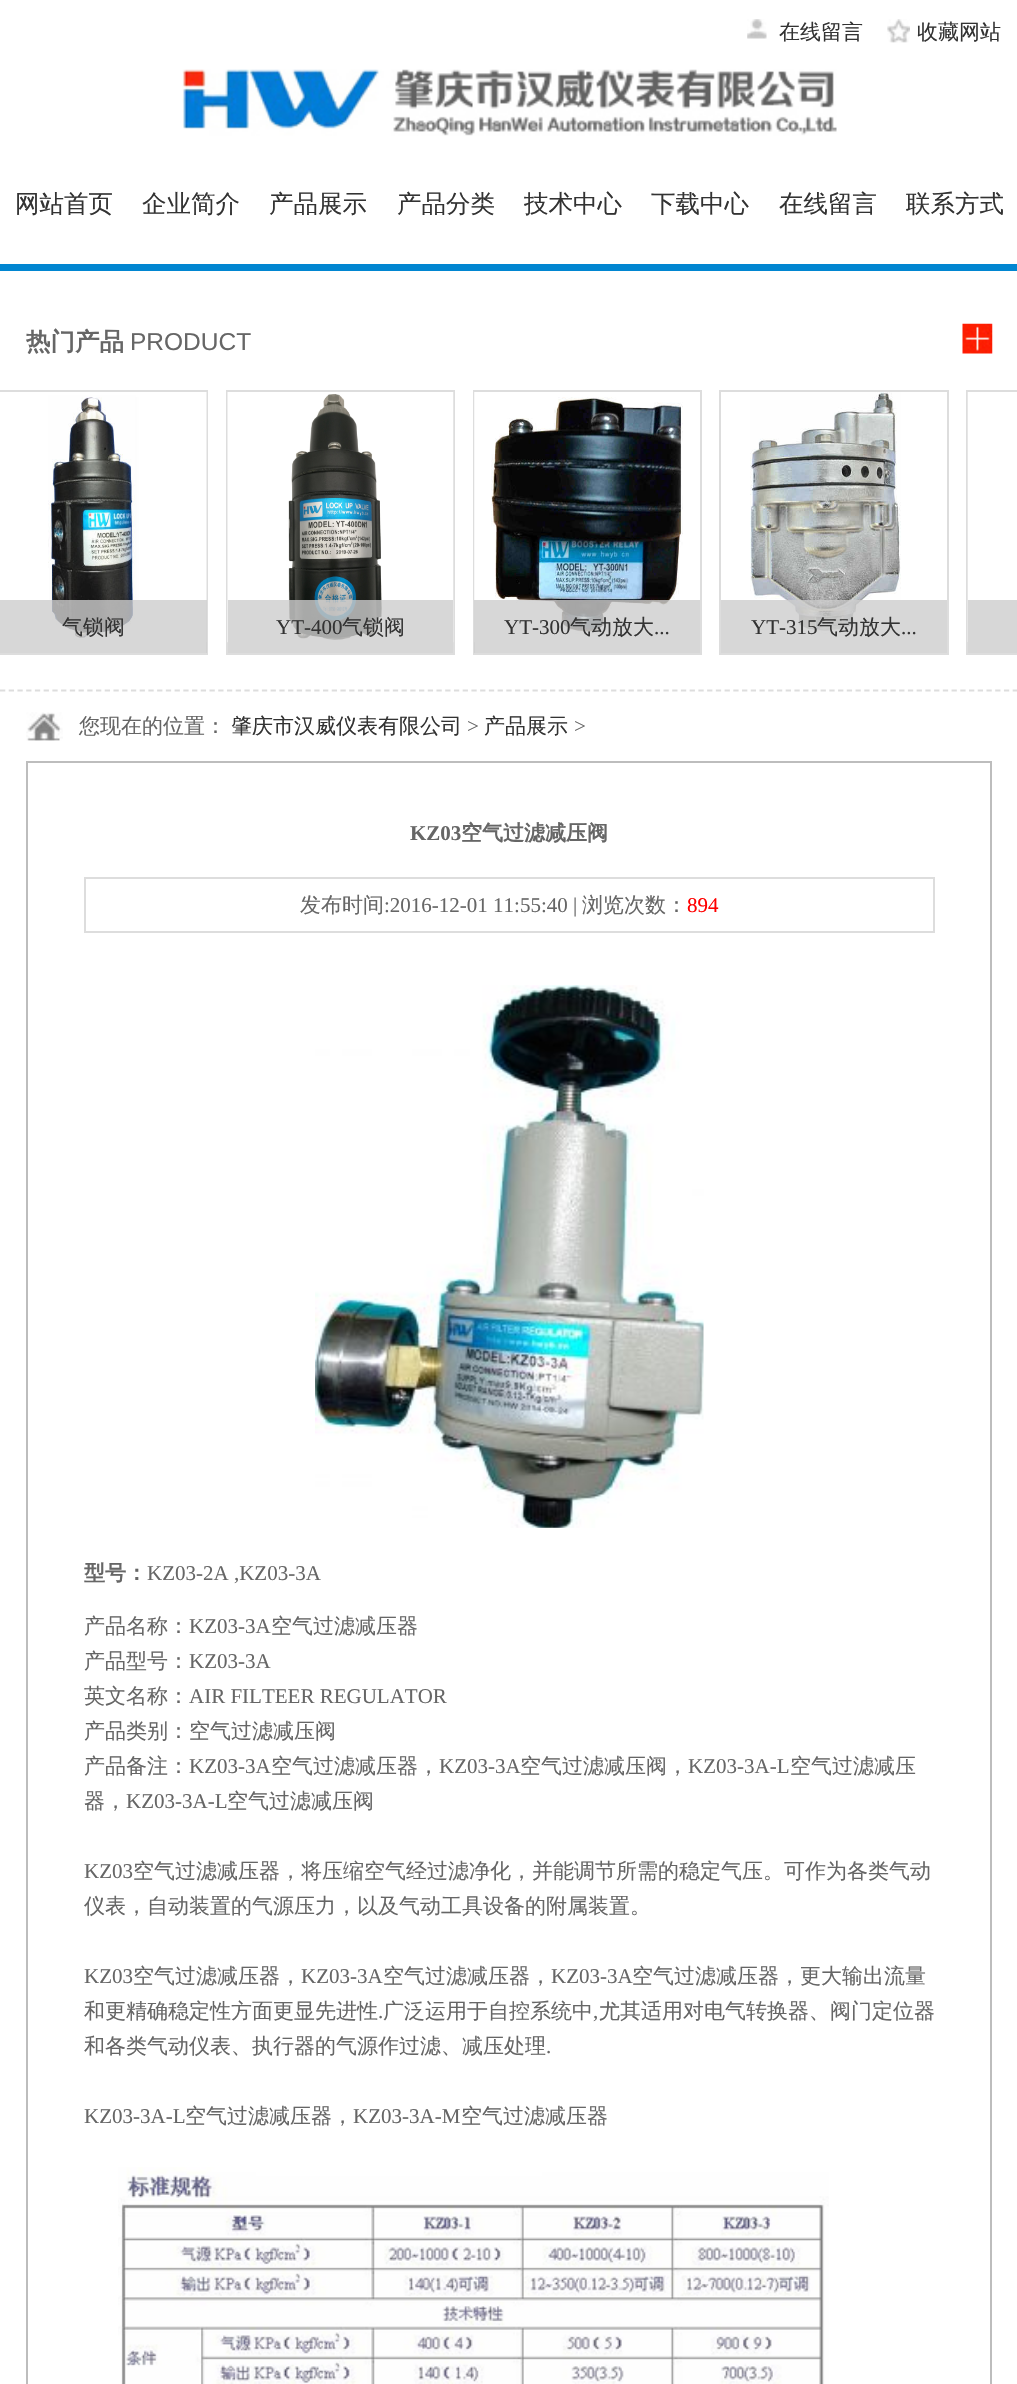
#include "include/core/SkBlurTypes.h"
#include "include/core/SkCanvas.h"
#include "include/core/SkData.h"
#include "include/core/SkFont.h"
#include "include/core/SkFontMgr.h"
#include "include/core/SkImage.h"
#include "include/core/SkMaskFilter.h"
#include "include/core/SkPaint.h"
#include "include/core/SkPathBuilder.h"
#include "include/core/SkTextBlob.h"
#include "include/effects/SkDashPathEffect.h"
#include "include/effects/SkGradientShader.h"
#include "include/utils/SkParsePath.h"

extern sk_sp<SkFontMgr> fontMgr;

void draw(SkCanvas* canvas) {
  SkPaint p;
  p.setAntiAlias(true);
  canvas->clear(SK_ColorWHITE);
  p.setColor(SkColorSetRGB(1, 134, 209));
  canvas->drawRect(SkRect::MakeLTRB(0, 264, 1017, 271), p);
  canvas->drawImageRect(SkImages::DeferredFromEncodedData(SkData::MakeFromFileName("images/1.png")), SkRect::MakeLTRB(747, 19, 767, 39), SkSamplingOptions());
  canvas->drawImageRect(SkImages::DeferredFromEncodedData(SkData::MakeFromFileName("images/2.png")), SkRect::MakeLTRB(887, 19, 910, 43), SkSamplingOptions());
  canvas->drawImageRect(SkImages::DeferredFromEncodedData(SkData::MakeFromFileName("images/3.png")), SkRect::MakeLTRB(182, 69, 837, 136), SkSamplingOptions());
  p.setStyle(SkPaint::kStroke_Style);
  p.setStrokeWidth(1.8f);
  p.setColor(SkColorSetRGB(221, 221, 221));
  p.setPathEffect(SkDashPathEffect::Make({{5.25f, 3.48f}}, 0));
  canvas->drawPath(SkPathBuilder().moveTo(0, 690.5f).lineTo(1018.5f, 690.5f).detach(), p);
  p.setPathEffect(nullptr);
  canvas->drawImageRect(SkImages::DeferredFromEncodedData(SkData::MakeFromFileName("images/4.png")), SkRect::MakeLTRB(962, 323, 993, 354), SkSamplingOptions());
  p.setStrokeWidth(2);
  canvas->drawRect(SkRect::MakeLTRB(-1, 391, 207, 654), p);
  canvas->drawImageRect(SkImages::DeferredFromEncodedData(SkData::MakeFromFileName("images/5.png")), SkRect::MakeLTRB(48, 392, 207, 643), SkSamplingOptions());
  p.setStyle(SkPaint::kFill_Style);
  p.setColor(SkColorSetARGB(204, 205, 205, 205));
  canvas->drawRect(SkRect::MakeLTRB(0, 600, 207, 653), p);
  p.setStyle(SkPaint::kStroke_Style);
  p.setColor(SkColorSetRGB(221, 221, 221));
  canvas->drawRect(SkRect::MakeLTRB(227, 391, 454, 654), p);
  canvas->drawImageRect(SkImages::DeferredFromEncodedData(SkData::MakeFromFileName("images/6.png")), SkRect::MakeLTRB(227, 392, 454, 643), SkSamplingOptions());
  p.setStyle(SkPaint::kFill_Style);
  p.setColor(SkColorSetARGB(204, 205, 205, 205));
  canvas->drawRect(SkRect::MakeLTRB(228, 600, 453, 653), p);
  p.setStyle(SkPaint::kStroke_Style);
  p.setColor(SkColorSetRGB(221, 221, 221));
  canvas->drawRect(SkRect::MakeLTRB(474, 391, 701, 654), p);
  canvas->drawImageRect(SkImages::DeferredFromEncodedData(SkData::MakeFromFileName("images/7.png")), SkRect::MakeLTRB(474, 392, 683, 643), SkSamplingOptions());
  p.setStyle(SkPaint::kFill_Style);
  p.setColor(SkColorSetARGB(204, 205, 205, 205));
  canvas->drawRect(SkRect::MakeLTRB(474, 600, 700, 653), p);
  p.setStyle(SkPaint::kStroke_Style);
  p.setColor(SkColorSetRGB(221, 221, 221));
  canvas->drawRect(SkRect::MakeLTRB(720, 391, 948, 654), p);
  canvas->drawImageRect(SkImages::DeferredFromEncodedData(SkData::MakeFromFileName("images/8.png")), SkRect::MakeLTRB(750, 392, 901, 634), SkSamplingOptions());
  p.setStyle(SkPaint::kFill_Style);
  p.setColor(SkColorSetARGB(204, 205, 205, 205));
  canvas->drawRect(SkRect::MakeLTRB(721, 600, 947, 653), p);
  p.setStyle(SkPaint::kStroke_Style);
  p.setColor(SkColorSetRGB(221, 221, 221));
  canvas->drawRect(SkRect::MakeLTRB(967, 391, 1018, 654), p);
  p.setStyle(SkPaint::kFill_Style);
  p.setColor(SkColorSetRGB(230, 230, 230));
  canvas->drawRect(SkRect::MakeLTRB(967, 392, 968, 642), p);
  p.setColor(SkColorSetRGB(215, 215, 215));
  canvas->drawRect(SkRect::MakeLTRB(968, 600, 1017, 653), p);
  canvas->drawImageRect(SkImages::DeferredFromEncodedData(SkData::MakeFromFileName("images/9.png")), SkRect::MakeLTRB(26, 712, 63, 741), SkSamplingOptions());
  p.setStyle(SkPaint::kStroke_Style);
  p.setColor(SkColorSetRGB(189, 189, 189));
  canvas->drawRect(SkRect::MakeLTRB(27, 762, 991, 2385), p);
  p.setColor(SkColorSetRGB(221, 221, 221));
  canvas->drawRect(SkRect::MakeLTRB(85, 878, 934, 932), p);
  canvas->drawImageRect(SkImages::DeferredFromEncodedData(SkData::MakeFromFileName("images/10.png")), SkRect::MakeLTRB(315, 985, 704, 1528), SkSamplingOptions());
  canvas->drawImageRect(SkImages::DeferredFromEncodedData(SkData::MakeFromFileName("images/11.png")), SkRect::MakeLTRB(118, 2167, 829, 2384), SkSamplingOptions());
  SkFont font1(fontMgr->matchFamilyStyle("WenQuanYi Zen Hei", SkFontStyle(500, SkFontStyle::kNormal_Width, SkFontStyle::kUpright_Slant)), 21);
  font1.setSubpixel(true);
  p.setStyle(SkPaint::kFill_Style);
  p.setColor(SkColorSetRGB(51, 51, 51));
  canvas->drawString("在线留言", 779, 39, font1, p);
  canvas->drawString("收藏网站", 917, 39, font1, p);
  SkFont font2(fontMgr->matchFamilyStyle("WenQuanYi Zen Hei", SkFontStyle(500, SkFontStyle::kNormal_Width, SkFontStyle::kUpright_Slant)), 24.5f);
  font2.setSubpixel(true);
  canvas->drawString("网站首页", 15, 212, font2, p);
  canvas->drawString("企业简介", 142, 212, font2, p);
  canvas->drawString("产品展示", 269, 212, font2, p);
  canvas->drawString("产品分类", 397, 212, font2, p);
  canvas->drawString("技术中心", 524, 212, font2, p);
  canvas->drawString("下载中心", 651, 212, font2, p);
  canvas->drawString("在线留言", 779, 212, font2, p);
  canvas->drawString("联系方式", 906, 212, font2, p);
  SkFont font3(fontMgr->matchFamilyStyle("WenQuanYi Zen Hei", SkFontStyle::Bold()), 24.5f);
  font3.setSubpixel(true);
  p.setColor(SkColorSetRGB(102, 102, 102));
  canvas->drawString("热门产品", 26, 350, font3, p);
  SkFont font4(fontMgr->matchFamilyStyle("Liberation Sans", SkFontStyle::Normal()), 24.5f);
  font4.setSubpixel(true);
  canvas->drawString("PRODUCT", 130, 350, font4, p);
  p.setColor(SkColorSetRGB(51, 51, 51));
  canvas->drawString("气锁阀", 62, 634, font1, p);
  SkFont font5(fontMgr->matchFamilyStyle("Liberation Serif", SkFontStyle::Normal()), 21);
  font5.setSubpixel(true);
  canvas->drawString("YT-400", 276, 634, font5, p);
  canvas->drawString("气锁阀", 342, 634, font1, p);
  canvas->drawString("YT-300", 504, 634, font5, p);
  canvas->drawString("气动放大", 570, 634, font1, p);
  canvas->drawString("...", 654, 634, font5, p);
  canvas->drawString("YT-315", 751, 634, font5, p);
  canvas->drawString("气动放大", 817, 634, font1, p);
  canvas->drawString("...", 901, 634, font5, p);
  p.setColor(SkColorSetRGB(102, 102, 102));
  canvas->drawString("您现在的位置：", 79, 733, font1, p);
  p.setColor(SkColorSetRGB(51, 51, 51));
  canvas->drawString("肇庆市汉威仪表有限公司", 231, 733, font1, p);
  p.setColor(SkColorSetRGB(102, 102, 102));
  canvas->drawString(">", 467, 733, font5, p);
  p.setColor(SkColorSetRGB(51, 51, 51));
  canvas->drawString("产品展示", 484, 733, font1, p);
  p.setColor(SkColorSetRGB(102, 102, 102));
  canvas->drawString(">", 574, 733, font5, p);
  SkFont font6(fontMgr->matchFamilyStyle("Liberation Serif", SkFontStyle::Bold()), 21);
  font6.setSubpixel(true);
  canvas->drawString("KZ03", 410, 840, font6, p);
  SkFont font7(fontMgr->matchFamilyStyle("WenQuanYi Zen Hei", SkFontStyle::Bold()), 21);
  font7.setSubpixel(true);
  canvas->drawString("空气过滤减压阀", 461, 840, font7, p);
  canvas->drawString("发布时间", 300, 912, font1, p);
  canvas->drawString(":2016-12-01 11:55:40 |", 384, 912, font5, p);
  canvas->drawString("浏览次数：", 582, 912, font1, p);
  p.setColor(SkColorSetRGB(255, 0, 0));
  canvas->drawString("894", 687, 912, font5, p);
  p.setColor(SkColorSetRGB(102, 102, 102));
  canvas->drawString("型号：", 84, 1580, font7, p);
  canvas->drawString("KZ03-2A ,KZ03-3A", 147, 1580, font5, p);
  canvas->drawString("产品名称：", 84, 1633, font1, p);
  canvas->drawString("KZ03-3A", 189, 1633, font5, p);
  canvas->drawString("空气过滤减压器", 271, 1633, font1, p);
  canvas->drawString("产品型号：", 84, 1668, font1, p);
  canvas->drawString("KZ03-3A", 189, 1668, font5, p);
  canvas->drawString("英文名称：", 84, 1703, font1, p);
  canvas->drawString("AIR FILTEER REGULATOR", 189, 1703, font5, p);
  canvas->drawString("产品类别：空气过滤减压阀", 84, 1738, font1, p);
  canvas->drawString("产品备注：", 84, 1773, font1, p);
  canvas->drawString("KZ03-3A", 189, 1773, font5, p);
  canvas->drawString("空气过滤减压器，", 271, 1773, font1, p);
  canvas->drawString("KZ03-3A", 439, 1773, font5, p);
  canvas->drawString("空气过滤减压阀，", 520, 1773, font1, p);
  canvas->drawString("KZ03-3A-L", 688, 1773, font5, p);
  canvas->drawString("空气过滤减压", 790, 1773, font1, p);
  canvas->drawString("器，", 84, 1808, font1, p);
  canvas->drawString("KZ03-3A-L", 126, 1808, font5, p);
  canvas->drawString("空气过滤减压阀", 227, 1808, font1, p);
  canvas->drawString("KZ03", 84, 1878, font5, p);
  canvas->drawString("空气过滤减压器，将压缩空气经过滤净化，并能调节所需的稳定气压。可作为各类气动", 133, 1878, font1, p);
  canvas->drawString("仪表，自动装置的气源压力，以及气动工具设备的附属装置。", 84, 1913, font1, p);
  canvas->drawString("KZ03", 84, 1983, font5, p);
  canvas->drawString("空气过滤减压器，", 133, 1983, font1, p);
  canvas->drawString("KZ03-3A", 301, 1983, font5, p);
  canvas->drawString("空气过滤减压器，", 383, 1983, font1, p);
  canvas->drawString("KZ03-3A", 551, 1983, font5, p);
  canvas->drawString("空气过滤减压器，更大输出流量", 632, 1983, font1, p);
  canvas->drawString("和更精确稳定性方面更显先进性", 84, 2018, font1, p);
  canvas->drawString(".", 378, 2018, font5, p);
  canvas->drawString("广泛运用于自控系统中", 383, 2018, font1, p);
  canvas->drawString(",", 593, 2018, font5, p);
  canvas->drawString("尤其适用对电气转换器、阀门定位器", 599, 2018, font1, p);
  canvas->drawString("和各类气动仪表、执行器的气源作过滤、减压处理", 84, 2053, font1, p);
  canvas->drawString(".", 546, 2053, font5, p);
  canvas->drawString("KZ03-3A-L", 84, 2123, font5, p);
  canvas->drawString("空气过滤减压器，", 185, 2123, font1, p);
  canvas->drawString("KZ03-3A-M", 353, 2123, font5, p);
  canvas->drawString("空气过滤减压器", 461, 2123, font1, p);
}
